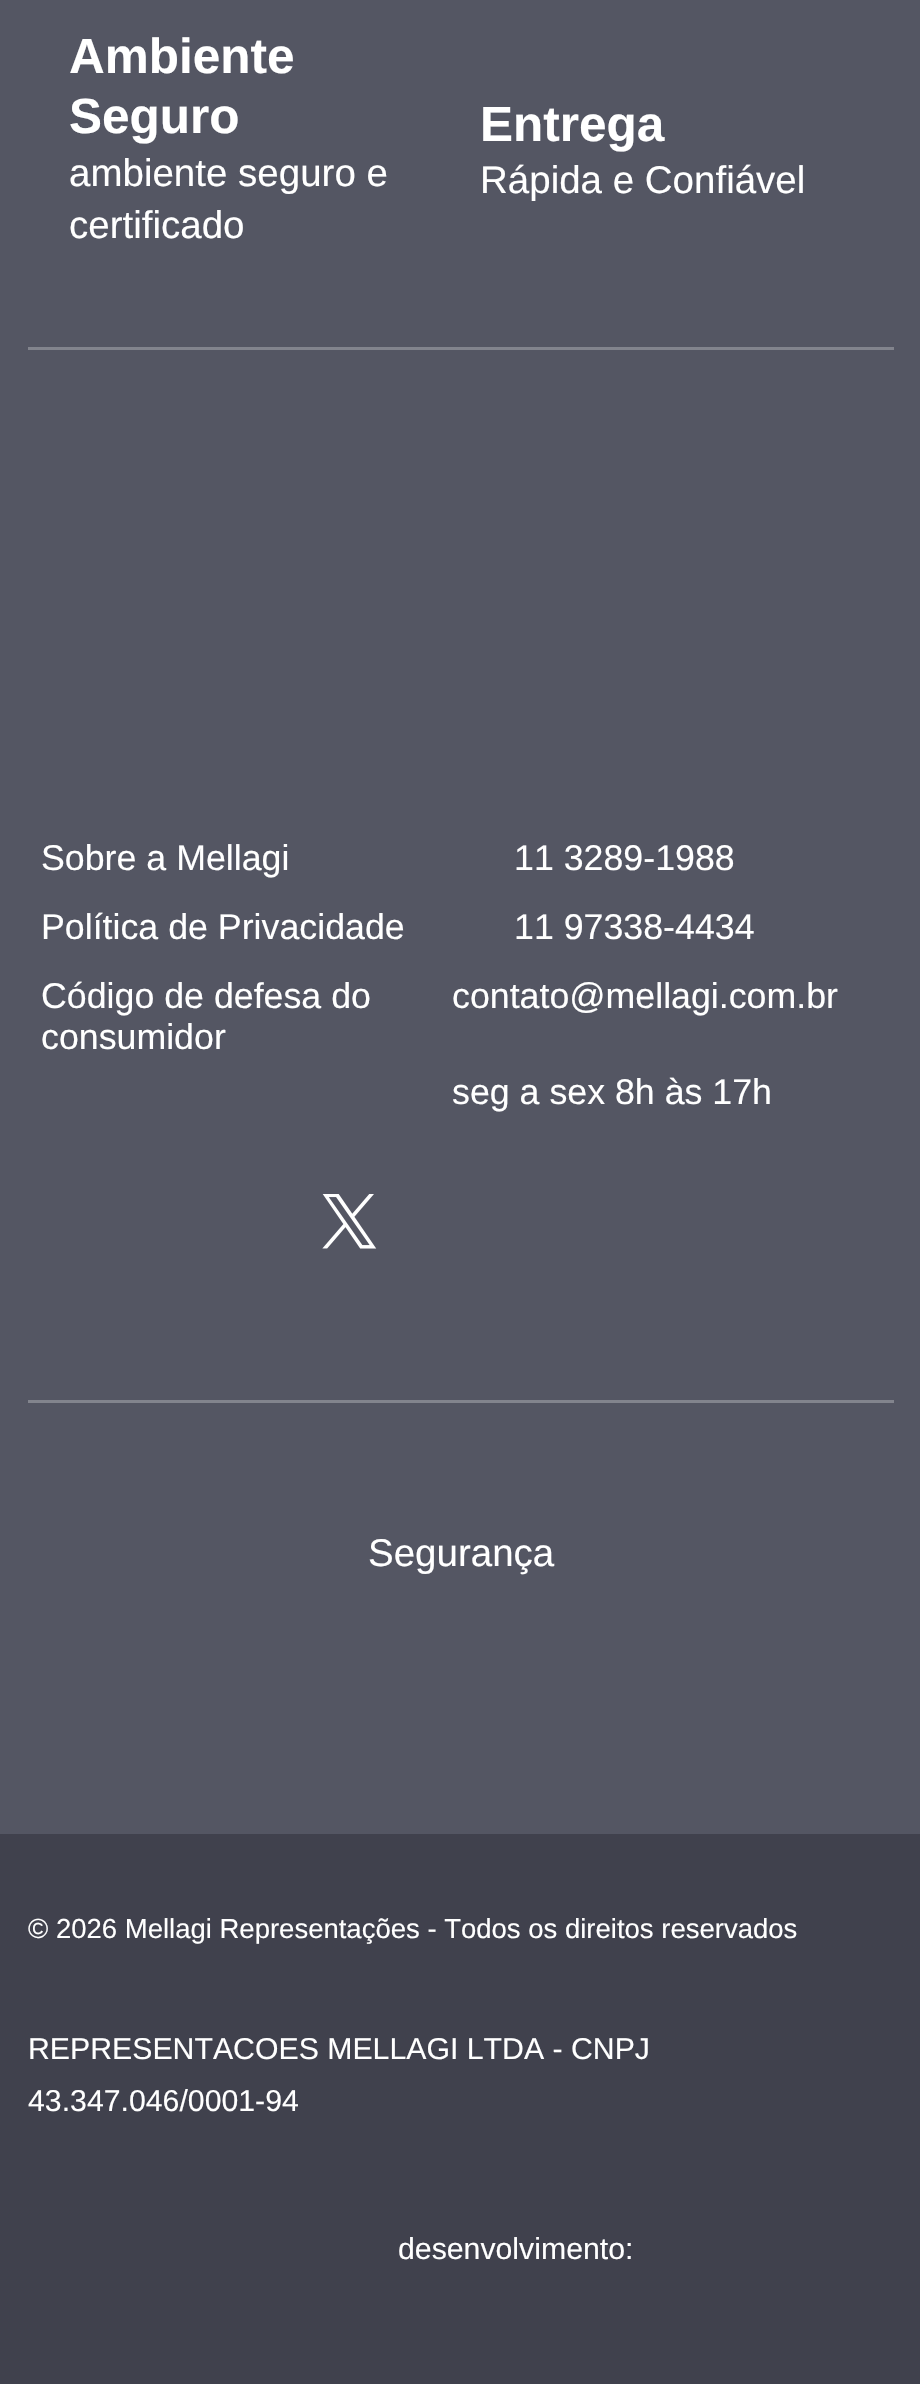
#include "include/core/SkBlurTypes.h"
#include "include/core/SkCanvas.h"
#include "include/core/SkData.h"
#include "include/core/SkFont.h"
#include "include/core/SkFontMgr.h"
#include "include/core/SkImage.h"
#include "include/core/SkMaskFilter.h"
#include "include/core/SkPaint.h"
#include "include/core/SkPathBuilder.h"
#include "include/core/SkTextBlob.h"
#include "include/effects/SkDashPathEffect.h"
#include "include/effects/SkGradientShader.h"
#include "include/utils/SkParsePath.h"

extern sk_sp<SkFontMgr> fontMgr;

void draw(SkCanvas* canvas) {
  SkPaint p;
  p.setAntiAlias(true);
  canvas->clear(SkColorSetRGB(84, 86, 99));
  p.setColor(SkColorSetRGB(130, 132, 141));
  canvas->drawRect(SkRect::MakeLTRB(28, 347, 894, 350), p);
  canvas->drawImageRect(SkImages::DeferredFromEncodedData(SkData::MakeFromFileName("images/1.png")), SkRect::MakeLTRB(322, 1194, 377, 1249), SkSamplingOptions());
  canvas->drawRect(SkRect::MakeLTRB(28, 1400, 894, 1403), p);
  p.setColor(SkColorSetRGB(64, 65, 77));
  canvas->drawRect(SkRect::MakeLTRB(0, 1834, 920, 2384), p);
  SkFont font1(fontMgr->matchFamilyStyle("Liberation Sans", SkFontStyle::Bold()), 49.5f);
  font1.setSubpixel(true);
  p.setColor(SK_ColorWHITE);
  canvas->drawString("Ambiente", 69, 73, font1, p);
  canvas->drawString("Seguro", 69, 133, font1, p);
  SkFont font2(fontMgr->matchFamilyStyle("Liberation Sans", SkFontStyle::Normal()), 38.5f);
  font2.setSubpixel(true);
  canvas->drawString("ambiente seguro e", 69, 186, font2, p);
  canvas->drawString("certificado", 69, 238, font2, p);
  canvas->drawString("Entrega", 480, 141, font1, p);
  canvas->drawString("Rápida e Confiável", 480, 193, font2, p);
  SkFont font3(fontMgr->matchFamilyStyle("Liberation Sans", SkFontStyle::Normal()), 35.75f);
  font3.setSubpixel(true);
  canvas->drawString("Sobre a Mellagi", 41, 870, font3, p);
  canvas->drawString("Política de Privacidade", 41, 939, font3, p);
  canvas->drawString("Código de defesa do", 41, 1008, font3, p);
  canvas->drawString("consumidor", 41, 1049, font3, p);
  canvas->drawString("11 3289-1988", 514, 870, font3, p);
  canvas->drawString("11 97338-4434", 514, 939, font3, p);
  canvas->drawString("contato@mellagi.com.br", 452, 1008, font3, p);
  canvas->drawString("seg a sex 8h às 17h", 452, 1104, font3, p);
  canvas->drawString("Segurança", 368, 1566, font2, p);
  SkFont font4(fontMgr->matchFamilyStyle("Liberation Sans", SkFontStyle::Normal()), 27.5f);
  font4.setSubpixel(true);
  canvas->drawString("© 2026 Mellagi Representações - Todos os direitos reservados", 28, 1938, font4, p);
  SkFont font5(fontMgr->matchFamilyStyle("Liberation Sans", SkFontStyle::Normal()), 30.25f);
  font5.setSubpixel(true);
  canvas->drawString("REPRESENTACOES MELLAGI LTDA - CNPJ", 28, 2059, font5, p);
  canvas->drawString("43.347.046/0001-94", 28, 2111, font5, p);
  canvas->drawString("desenvolvimento:", 398, 2259, font5, p);
}
